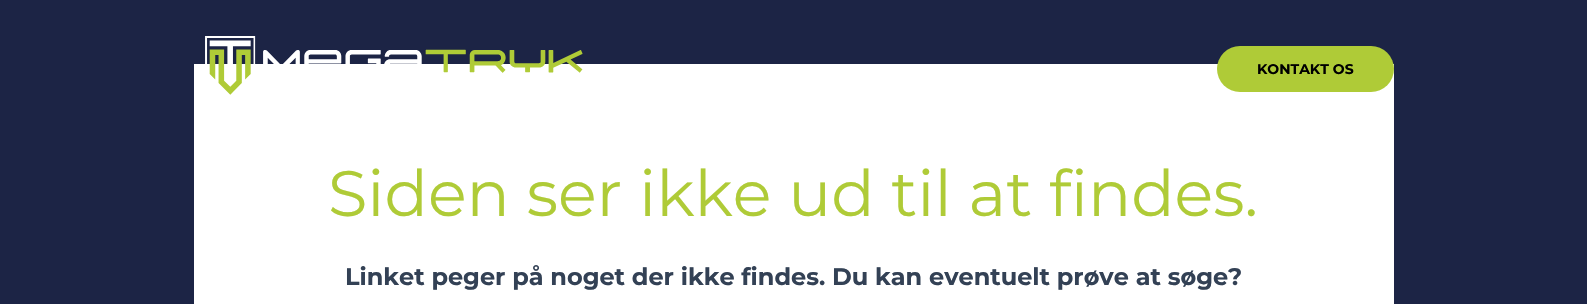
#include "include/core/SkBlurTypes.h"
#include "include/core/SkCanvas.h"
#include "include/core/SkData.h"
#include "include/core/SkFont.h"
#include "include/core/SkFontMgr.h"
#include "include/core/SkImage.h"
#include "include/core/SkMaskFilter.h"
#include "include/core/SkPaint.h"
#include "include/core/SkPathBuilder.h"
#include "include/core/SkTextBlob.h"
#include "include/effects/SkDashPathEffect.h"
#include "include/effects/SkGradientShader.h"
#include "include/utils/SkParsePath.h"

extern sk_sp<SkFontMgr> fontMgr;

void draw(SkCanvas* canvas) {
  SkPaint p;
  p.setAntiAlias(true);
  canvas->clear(SkColorSetRGB(28, 36, 69));
  p.setColor(SK_ColorWHITE);
  canvas->drawRect(SkRect::MakeLTRB(194, 64, 1394, 304), p);
  canvas->drawImageRect(SkImages::DeferredFromEncodedData(SkData::MakeFromFileName("images/1.png")), SkRect::MakeLTRB(205, 36, 583, 95), SkSamplingOptions());
  p.setColor(SkColorSetRGB(175, 203, 55));
  canvas->drawRoundRect(SkRect::MakeLTRB(1217, 46, 1394, 92), 23, 23, p);
  SkFont font1(fontMgr->matchFamilyStyle("Montserrat", SkFontStyle::Bold()), 14);
  font1.setSubpixel(true);
  p.setColor(SK_ColorBLACK);
  canvas->drawString("KONTAKT OS", 1257, 74, font1, p);
  SkFont font2(fontMgr->matchFamilyStyle("Montserrat", SkFontStyle::Normal()), 64);
  font2.setSubpixel(true);
  p.setColor(SkColorSetRGB(175, 203, 55));
  canvas->drawString("Siden ser ikke ud til at findes.", 328, 216, font2, p);
  SkFont font3(fontMgr->matchFamilyStyle("Montserrat", SkFontStyle::Bold()), 24);
  font3.setSubpixel(true);
  p.setColor(SkColorSetRGB(51, 65, 85));
  canvas->drawString("Linket peger på noget der ikke findes. Du kan eventuelt prøve at søge?", 345, 285, font3, p);
}
